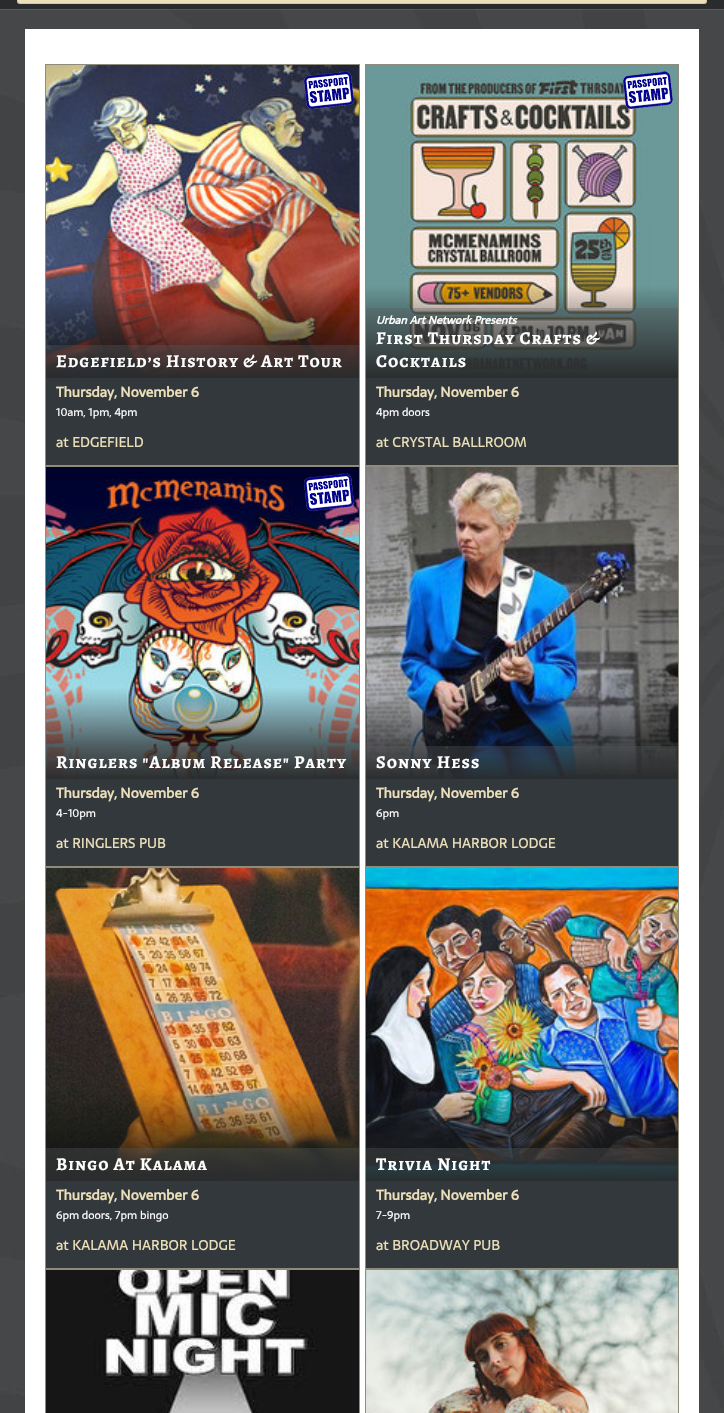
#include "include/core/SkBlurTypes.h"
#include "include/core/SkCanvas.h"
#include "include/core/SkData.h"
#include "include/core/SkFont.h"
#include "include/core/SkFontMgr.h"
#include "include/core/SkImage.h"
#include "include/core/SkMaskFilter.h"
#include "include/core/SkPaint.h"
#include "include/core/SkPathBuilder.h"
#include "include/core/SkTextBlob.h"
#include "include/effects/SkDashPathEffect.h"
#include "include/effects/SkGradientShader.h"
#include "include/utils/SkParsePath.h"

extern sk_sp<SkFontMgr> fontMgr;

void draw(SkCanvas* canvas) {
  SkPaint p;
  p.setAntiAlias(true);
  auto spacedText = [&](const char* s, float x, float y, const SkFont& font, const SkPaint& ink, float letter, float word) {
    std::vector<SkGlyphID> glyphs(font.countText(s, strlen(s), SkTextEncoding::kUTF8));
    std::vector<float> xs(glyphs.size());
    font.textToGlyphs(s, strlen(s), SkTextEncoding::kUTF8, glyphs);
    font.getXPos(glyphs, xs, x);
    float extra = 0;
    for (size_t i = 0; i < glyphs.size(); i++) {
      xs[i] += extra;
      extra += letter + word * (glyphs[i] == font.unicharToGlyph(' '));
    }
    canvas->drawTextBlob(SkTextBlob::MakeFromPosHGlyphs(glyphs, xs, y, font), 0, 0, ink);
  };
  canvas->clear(SK_ColorWHITE);
  canvas->drawImageRect(SkImages::DeferredFromEncodedData(SkData::MakeFromFileName("images/1.png")), SkRect::MakeLTRB(0, 9, 724, 1413), SkSamplingOptions());
  p.setColor(SkColorSetARGB(26, 255, 255, 255));
  canvas->drawRect(SkRect::MakeLTRB(0, 9, 724, 10), p);
  p.setColor(SkColorSetRGB(41, 43, 45));
  canvas->drawRect(SkRect::MakeLTRB(0, 0, 724, 9), p);
  p.setColor(SkColorSetRGB(236, 224, 186));
  canvas->drawRoundRect(SkRect::MakeLTRB(17, -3, 707, 4), 3, 3, p);
  p.setStyle(SkPaint::kStroke_Style);
  p.setStrokeWidth(1);
  p.setColor(SkColorSetARGB(26, 0, 0, 0));
  canvas->drawRoundRect(SkRect::MakeLTRB(17.5f, -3.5f, 706.5f, 3.5f), 2.5f, 2.5f, p);
  p.setStyle(SkPaint::kFill_Style);
  p.setColor(SK_ColorWHITE);
  canvas->drawRect(SkRect::MakeLTRB(25, 29, 699, 1413), p);
  p.setColor(SkColorSetRGB(51, 56, 61));
  canvas->drawRect(SkRect::MakeLTRB(46, 378, 359, 465), p);
  p.setStyle(SkPaint::kStroke_Style);
  p.setColor(SkColorSetRGB(144, 140, 124));
  canvas->drawRect(SkRect::MakeLTRB(45.5f, 64.5f, 359.5f, 465.5f), p);
  canvas->drawImageRect(SkImages::DeferredFromEncodedData(SkData::MakeFromFileName("images/2.png")), SkRect::MakeLTRB(46, 65, 359, 378), SkSamplingOptions());
  canvas->drawImageRect(SkImages::DeferredFromEncodedData(SkData::MakeFromFileName("images/3.png")), SkRect::MakeLTRB(304, 71, 354, 109), SkSamplingOptions());
  p.setStyle(SkPaint::kFill_Style);
  p.setColor(SkColorSetARGB(89, 87, 92, 95));
  canvas->drawRect(SkRect::MakeLTRB(46, 345, 359, 378), p);
  p.setColor(SkColorSetRGB(51, 56, 61));
  canvas->drawRect(SkRect::MakeLTRB(366, 378, 678, 465), p);
  p.setStyle(SkPaint::kStroke_Style);
  p.setColor(SkColorSetRGB(144, 140, 124));
  canvas->drawRect(SkRect::MakeLTRB(365.5f, 64.5f, 678.5f, 465.5f), p);
  canvas->drawImageRect(SkImages::DeferredFromEncodedData(SkData::MakeFromFileName("images/4.png")), SkRect::MakeLTRB(366, 65, 678, 378), SkSamplingOptions());
  canvas->drawImageRect(SkImages::DeferredFromEncodedData(SkData::MakeFromFileName("images/5.png")), SkRect::MakeLTRB(623, 71, 673, 109), SkSamplingOptions());
  p.setStyle(SkPaint::kFill_Style);
  p.setColor(SkColorSetARGB(89, 87, 92, 95));
  canvas->drawRect(SkRect::MakeLTRB(366, 308, 678, 378), p);
  p.setColor(SkColorSetRGB(51, 56, 61));
  canvas->drawRect(SkRect::MakeLTRB(46, 779, 359, 866), p);
  p.setStyle(SkPaint::kStroke_Style);
  p.setColor(SkColorSetRGB(144, 140, 124));
  canvas->drawRect(SkRect::MakeLTRB(45.5f, 466.5f, 359.5f, 866.5f), p);
  canvas->drawImageRect(SkImages::DeferredFromEncodedData(SkData::MakeFromFileName("images/6.png")), SkRect::MakeLTRB(46, 467, 359, 779), SkSamplingOptions());
  canvas->drawImageRect(SkImages::DeferredFromEncodedData(SkData::MakeFromFileName("images/7.png")), SkRect::MakeLTRB(304, 473, 354, 511), SkSamplingOptions());
  p.setStyle(SkPaint::kFill_Style);
  p.setColor(SkColorSetARGB(89, 87, 92, 95));
  canvas->drawRect(SkRect::MakeLTRB(46, 746, 359, 779), p);
  p.setColor(SkColorSetRGB(51, 56, 61));
  canvas->drawRect(SkRect::MakeLTRB(366, 779, 678, 866), p);
  p.setStyle(SkPaint::kStroke_Style);
  p.setColor(SkColorSetRGB(144, 140, 124));
  canvas->drawRect(SkRect::MakeLTRB(365.5f, 466.5f, 678.5f, 866.5f), p);
  canvas->drawImageRect(SkImages::DeferredFromEncodedData(SkData::MakeFromFileName("images/8.png")), SkRect::MakeLTRB(366, 467, 678, 779), SkSamplingOptions());
  p.setStyle(SkPaint::kFill_Style);
  p.setColor(SkColorSetARGB(89, 87, 92, 95));
  canvas->drawRect(SkRect::MakeLTRB(366, 746, 678, 779), p);
  p.setColor(SkColorSetRGB(51, 56, 61));
  canvas->drawRect(SkRect::MakeLTRB(46, 1181, 359, 1268), p);
  p.setStyle(SkPaint::kStroke_Style);
  p.setColor(SkColorSetRGB(144, 140, 124));
  canvas->drawRect(SkRect::MakeLTRB(45.5f, 867.5f, 359.5f, 1268.5f), p);
  canvas->drawImageRect(SkImages::DeferredFromEncodedData(SkData::MakeFromFileName("images/9.png")), SkRect::MakeLTRB(46, 868, 359, 1181), SkSamplingOptions());
  p.setStyle(SkPaint::kFill_Style);
  p.setColor(SkColorSetARGB(89, 87, 92, 95));
  canvas->drawRect(SkRect::MakeLTRB(46, 1148, 359, 1181), p);
  p.setColor(SkColorSetRGB(51, 56, 61));
  canvas->drawRect(SkRect::MakeLTRB(366, 1181, 678, 1268), p);
  p.setStyle(SkPaint::kStroke_Style);
  p.setColor(SkColorSetRGB(144, 140, 124));
  canvas->drawRect(SkRect::MakeLTRB(365.5f, 867.5f, 678.5f, 1268.5f), p);
  canvas->drawImageRect(SkImages::DeferredFromEncodedData(SkData::MakeFromFileName("images/10.png")), SkRect::MakeLTRB(366, 868, 678, 1181), SkSamplingOptions());
  p.setStyle(SkPaint::kFill_Style);
  p.setColor(SkColorSetARGB(89, 87, 92, 95));
  canvas->drawRect(SkRect::MakeLTRB(366, 1148, 678, 1181), p);
  p.setStyle(SkPaint::kStroke_Style);
  p.setColor(SkColorSetRGB(144, 140, 124));
  canvas->drawRect(SkRect::MakeLTRB(45.5f, 1269.5f, 359.5f, 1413.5f), p);
  canvas->drawImageRect(SkImages::DeferredFromEncodedData(SkData::MakeFromFileName("images/11.png")), SkRect::MakeLTRB(46, 1270, 359, 1413), SkSamplingOptions());
  canvas->drawRect(SkRect::MakeLTRB(365.5f, 1269.5f, 678.5f, 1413.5f), p);
  canvas->drawImageRect(SkImages::DeferredFromEncodedData(SkData::MakeFromFileName("images/12.png")), SkRect::MakeLTRB(366, 1270, 678, 1413), SkSamplingOptions());
  SkFont font1(fontMgr->matchFamilyStyle("Alegreya SC", SkFontStyle::Bold()), 18);
  font1.setSubpixel(true);
  p.setStyle(SkPaint::kFill_Style);
  p.setColor(SK_ColorWHITE);
  spacedText("Edgefield’s History & Art Tour", 56, 367, font1, p, 1, 0);
  SkFont font2(fontMgr->matchFamilyStyle("Sarala", SkFontStyle::Bold()), 14);
  font2.setSubpixel(true);
  p.setColor(SkColorSetRGB(236, 224, 186));
  canvas->drawString("Thursday, November 6", 56, 397, font2, p);
  SkFont font3(fontMgr->matchFamilyStyle("Sarala", SkFontStyle::Normal()), 11);
  font3.setSubpixel(true);
  p.setColor(SK_ColorWHITE);
  canvas->drawString("10am, 1pm, 4pm", 56, 416, font3, p);
  SkFont font4(fontMgr->matchFamilyStyle("Sarala", SkFontStyle::Normal()), 14);
  font4.setSubpixel(true);
  p.setColor(SkColorSetRGB(236, 224, 186));
  canvas->drawString("at EDGEFIELD", 56, 447, font4, p);
  SkFont font5(fontMgr->matchFamilyStyle("Sarala", SkFontStyle::BoldItalic()), 11);
  font5.setSubpixel(true);
  p.setColor(SK_ColorWHITE);
  canvas->drawString("Urban Art Network Presents", 376, 324, font5, p);
  spacedText("First Thursday Crafts &", 376, 344, font1, p, 1, 0);
  spacedText("Cocktails", 376, 367, font1, p, 1, 0);
  p.setColor(SkColorSetRGB(236, 224, 186));
  canvas->drawString("Thursday, November 6", 376, 397, font2, p);
  p.setColor(SK_ColorWHITE);
  canvas->drawString("4pm doors", 376, 416, font3, p);
  p.setColor(SkColorSetRGB(236, 224, 186));
  canvas->drawString("at CRYSTAL BALLROOM", 376, 447, font4, p);
  p.setColor(SK_ColorWHITE);
  spacedText("Ringlers \"Album Release\" Party", 56, 768, font1, p, 1, 0);
  p.setColor(SkColorSetRGB(236, 224, 186));
  canvas->drawString("Thursday, November 6", 56, 798, font2, p);
  p.setColor(SK_ColorWHITE);
  canvas->drawString("4-10pm", 56, 817, font3, p);
  p.setColor(SkColorSetRGB(236, 224, 186));
  canvas->drawString("at RINGLERS PUB", 56, 848, font4, p);
  p.setColor(SK_ColorWHITE);
  spacedText("Sonny Hess", 376, 768, font1, p, 1, 0);
  p.setColor(SkColorSetRGB(236, 224, 186));
  canvas->drawString("Thursday, November 6", 376, 798, font2, p);
  p.setColor(SK_ColorWHITE);
  canvas->drawString("6pm", 376, 817, font3, p);
  p.setColor(SkColorSetRGB(236, 224, 186));
  canvas->drawString("at KALAMA HARBOR LODGE", 376, 848, font4, p);
  p.setColor(SK_ColorWHITE);
  spacedText("Bingo At Kalama", 56, 1170, font1, p, 1, 0);
  p.setColor(SkColorSetRGB(236, 224, 186));
  canvas->drawString("Thursday, November 6", 56, 1200, font2, p);
  p.setColor(SK_ColorWHITE);
  canvas->drawString("6pm doors, 7pm bingo", 56, 1219, font3, p);
  p.setColor(SkColorSetRGB(236, 224, 186));
  canvas->drawString("at KALAMA HARBOR LODGE", 56, 1250, font4, p);
  p.setColor(SK_ColorWHITE);
  spacedText("Trivia Night", 376, 1170, font1, p, 1, 0);
  p.setColor(SkColorSetRGB(236, 224, 186));
  canvas->drawString("Thursday, November 6", 376, 1200, font2, p);
  p.setColor(SK_ColorWHITE);
  canvas->drawString("7-9pm", 376, 1219, font3, p);
  p.setColor(SkColorSetRGB(236, 224, 186));
  canvas->drawString("at BROADWAY PUB", 376, 1250, font4, p);
}
